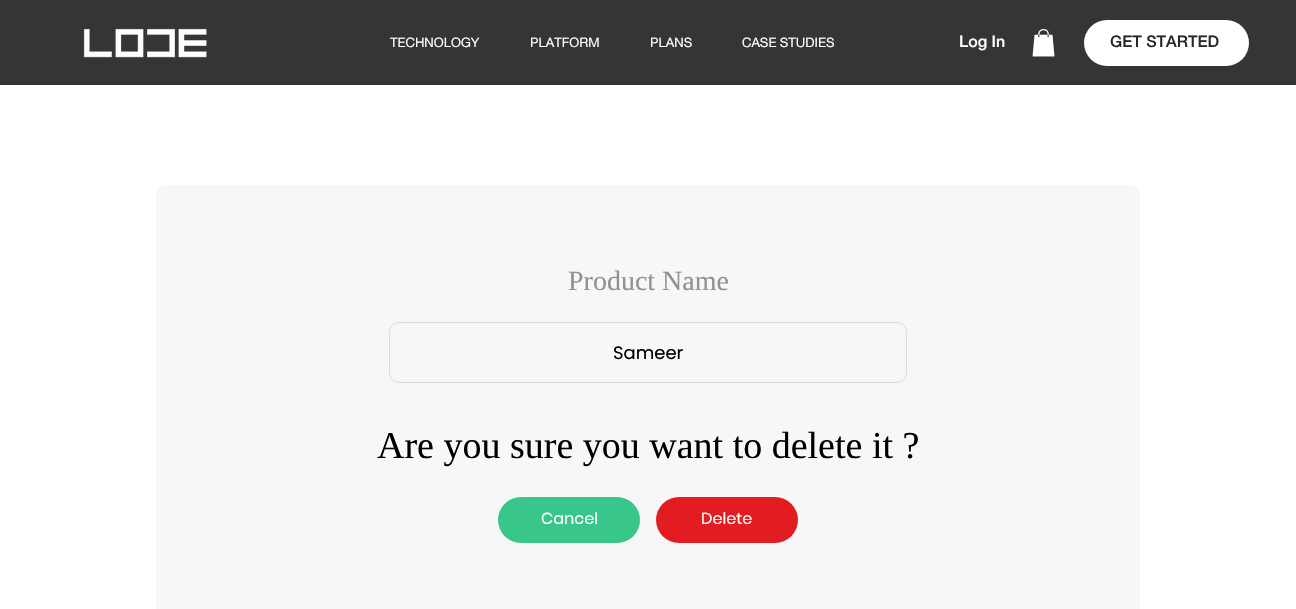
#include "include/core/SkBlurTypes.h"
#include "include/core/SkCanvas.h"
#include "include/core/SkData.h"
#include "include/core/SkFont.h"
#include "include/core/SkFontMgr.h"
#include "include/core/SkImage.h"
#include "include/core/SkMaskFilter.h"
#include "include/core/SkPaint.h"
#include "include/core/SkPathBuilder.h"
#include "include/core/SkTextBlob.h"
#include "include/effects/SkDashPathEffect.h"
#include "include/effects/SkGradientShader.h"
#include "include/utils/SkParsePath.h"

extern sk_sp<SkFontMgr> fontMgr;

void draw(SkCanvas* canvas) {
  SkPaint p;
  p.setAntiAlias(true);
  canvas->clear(SK_ColorWHITE);
  p.setColor(SkColorSetRGB(53, 53, 53));
  canvas->drawRect(SkRect::MakeLTRB(0, 0, 1296, 85), p);
  canvas->drawImageRect(SkImages::DeferredFromEncodedData(SkData::MakeFromFileName("images/1.png")), SkRect::MakeLTRB(83, 28, 207, 58), SkSamplingOptions());
  canvas->drawImageRect(SkImages::DeferredFromEncodedData(SkData::MakeFromFileName("images/2.png")), SkRect::MakeLTRB(1032, 29, 1055, 57), SkSamplingOptions());
  p.setColor(SK_ColorWHITE);
  canvas->drawRoundRect(SkRect::MakeLTRB(1084, 20, 1249, 66), 23, 23, p);
  p.setColor(SkColorSetARGB(153, 242, 242, 242));
  canvas->drawRoundRect(SkRect::MakeLTRB(156, 185, 1140, 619), 10, 10, p);
  p.setStyle(SkPaint::kStroke_Style);
  p.setStrokeWidth(1);
  p.setColor(SkColorSetRGB(219, 219, 219));
  canvas->drawRoundRect(SkRect::MakeLTRB(389.5f, 322.5f, 906.5f, 382.5f), 9.5f, 9.5f, p);
  p.setStyle(SkPaint::kFill_Style);
  p.setColor(SkColorSetRGB(56, 198, 139));
  canvas->drawRoundRect(SkRect::MakeLTRB(498, 497, 640, 543), 23, 23, p);
  p.setColor(SkColorSetRGB(226, 28, 33));
  canvas->drawRoundRect(SkRect::MakeLTRB(656, 497, 798, 543), 23, 23, p);
  SkFont font1(fontMgr->matchFamilyStyle("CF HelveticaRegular", SkFontStyle::Normal()), 14);
  font1.setSubpixel(true);
  p.setColor(SK_ColorWHITE);
  canvas->drawString("TECHNOLOGY", 390, 47, font1, p);
  canvas->drawString("PLATFORM", 530, 47, font1, p);
  canvas->drawString("PLANS", 650, 47, font1, p);
  canvas->drawString("CASE STUDIES", 742, 47, font1, p);
  SkFont font2(fontMgr->matchFamilyStyle("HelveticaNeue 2", SkFontStyle(500, SkFontStyle::kNormal_Width, SkFontStyle::kUpright_Slant)), 16);
  font2.setSubpixel(true);
  canvas->drawString("Log In", 959, 47, font2, p);
  SkFont font3(fontMgr->matchFamilyStyle("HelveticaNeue", SkFontStyle(500, SkFontStyle::kNormal_Width, SkFontStyle::kUpright_Slant)), 16);
  font3.setSubpixel(true);
  p.setColor(SkColorSetRGB(40, 40, 40));
  canvas->drawString("GET STARTED", 1110, 47, font3, p);
  SkFont font4(fontMgr->matchFamilyStyle("Liberation Serif", SkFontStyle::Normal()), 28);
  font4.setSubpixel(true);
  p.setColor(SkColorSetRGB(145, 145, 145));
  canvas->drawString("Product Name", 568, 290, font4, p);
  SkFont font5(fontMgr->matchFamilyStyle("Poppins", SkFontStyle::Normal()), 18);
  font5.setSubpixel(true);
  p.setColor(SK_ColorBLACK);
  canvas->drawString("Sameer", 613, 359, font5, p);
  SkFont font6(fontMgr->matchFamilyStyle("Liberation Serif", SkFontStyle::Normal()), 38);
  font6.setSubpixel(true);
  canvas->drawString("Are you sure you want to delete it ?", 377, 458, font6, p);
  SkFont font7(fontMgr->matchFamilyStyle("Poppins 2", SkFontStyle::Normal()), 16);
  font7.setSubpixel(true);
  p.setColor(SK_ColorWHITE);
  canvas->drawString("Cancel", 541, 524, font7, p);
  canvas->drawString("Delete", 701, 524, font7, p);
}
